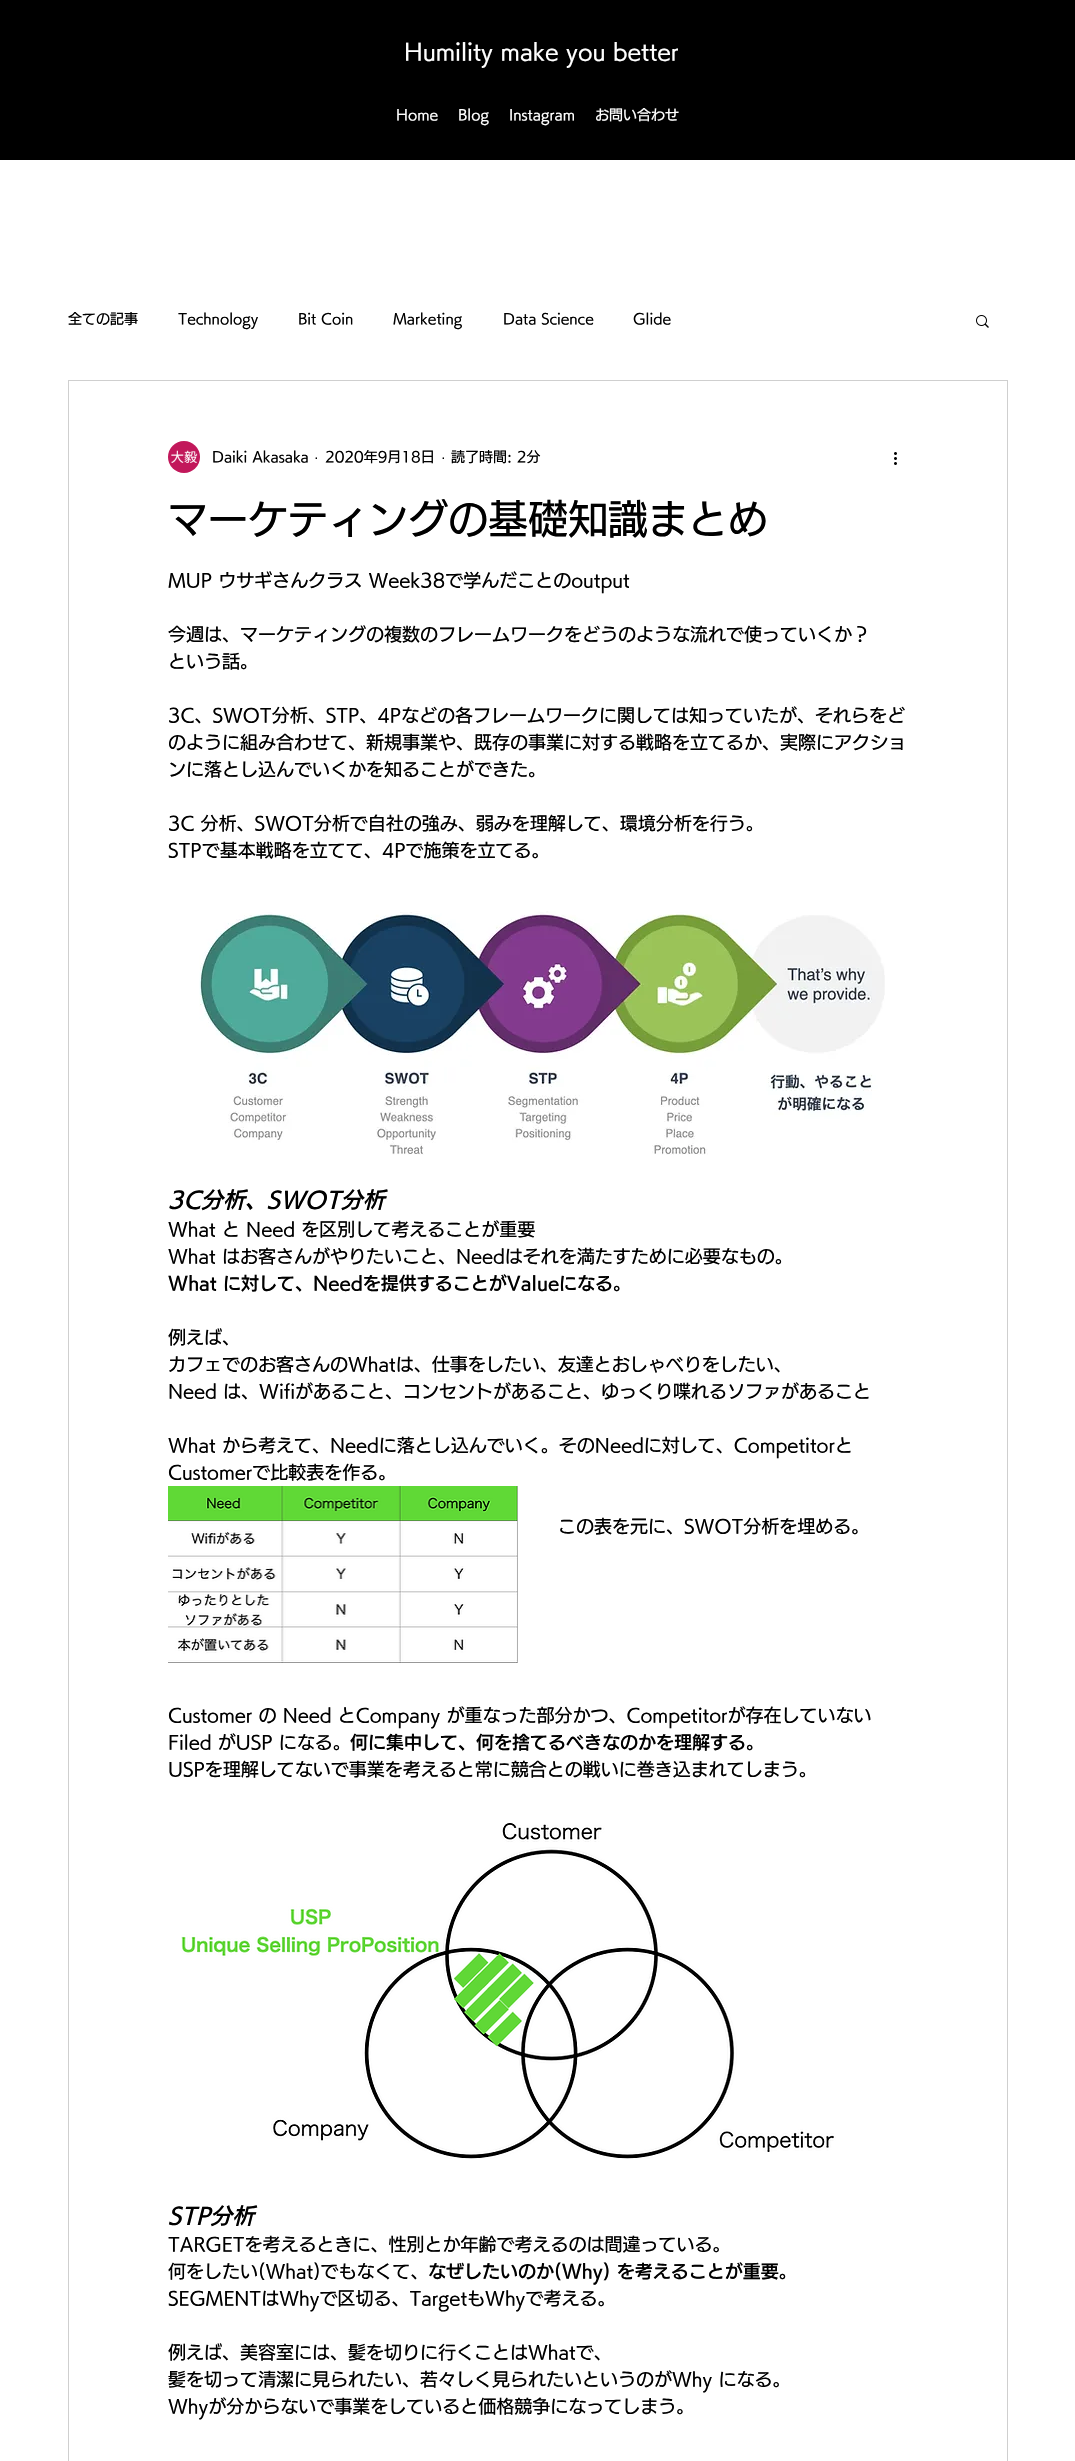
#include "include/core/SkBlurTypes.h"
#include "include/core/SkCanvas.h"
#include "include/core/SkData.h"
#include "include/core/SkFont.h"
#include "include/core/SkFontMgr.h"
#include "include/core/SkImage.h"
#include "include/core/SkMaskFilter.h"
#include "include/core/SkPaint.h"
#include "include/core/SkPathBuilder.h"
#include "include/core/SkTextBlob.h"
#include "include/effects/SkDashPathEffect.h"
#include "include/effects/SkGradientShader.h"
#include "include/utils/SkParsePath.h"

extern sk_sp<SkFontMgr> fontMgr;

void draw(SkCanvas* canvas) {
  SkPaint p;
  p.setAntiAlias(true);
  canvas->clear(SK_ColorWHITE);
  p.setColor(SK_ColorBLACK);
  canvas->drawRect(SkRect::MakeLTRB(0, 0, 1075, 160), p);
  canvas->drawImageRect(SkImages::DeferredFromEncodedData(SkData::MakeFromFileName("images/1.png")), SkRect::MakeLTRB(976, 315, 989, 328), SkSamplingOptions());
  p.setStyle(SkPaint::kStroke_Style);
  p.setStrokeWidth(1);
  p.setColor(SkColorSetRGB(207, 207, 207));
  canvas->drawRect(SkRect::MakeLTRB(68.5f, 380.5f, 1007.5f, 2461.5f), p);
  canvas->drawImageRect(SkImages::DeferredFromEncodedData(SkData::MakeFromFileName("images/2.png")), SkRect::MakeLTRB(168, 441, 200, 473), SkSamplingOptions());
  canvas->drawImageRect(SkImages::DeferredFromEncodedData(SkData::MakeFromFileName("images/3.png")), SkRect::MakeLTRB(894, 452, 897, 465), SkSamplingOptions());
  canvas->drawImageRect(SkImages::DeferredFromEncodedData(SkData::MakeFromFileName("images/4.png")), SkRect::MakeLTRB(199, 911, 885, 1155), SkSamplingOptions());
  canvas->drawImageRect(SkImages::DeferredFromEncodedData(SkData::MakeFromFileName("images/5.png")), SkRect::MakeLTRB(168, 1486, 518, 1663), SkSamplingOptions());
  canvas->drawImageRect(SkImages::DeferredFromEncodedData(SkData::MakeFromFileName("images/6.png")), SkRect::MakeLTRB(181, 1823, 836, 2159), SkSamplingOptions());
  SkFont font1(fontMgr->matchFamilyStyle("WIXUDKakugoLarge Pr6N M", SkFontStyle(500, SkFontStyle::kNormal_Width, SkFontStyle::kUpright_Slant)), 22);
  font1.setSubpixel(true);
  p.setStyle(SkPaint::kFill_Style);
  p.setColor(SK_ColorWHITE);
  canvas->drawString("Humility make you better", 404, 60, font1, p);
  SkFont font2(fontMgr->matchFamilyStyle("WIXUDKakugoLarge Pr6N M", SkFontStyle(500, SkFontStyle::kNormal_Width, SkFontStyle::kUpright_Slant)), 14);
  font2.setSubpixel(true);
  canvas->drawString("Home", 396, 120, font2, p);
  canvas->drawString("Blog", 458, 120, font2, p);
  canvas->drawString("Instagram", 509, 120, font2, p);
  canvas->drawString("お問い合わせ", 595, 120, font2, p);
  p.setColor(SK_ColorBLACK);
  canvas->drawString("全ての記事", 68, 324, font2, p);
  canvas->drawString("Technology", 178, 324, font2, p);
  canvas->drawString("Bit Coin", 298, 324, font2, p);
  canvas->drawString("Marketing", 393, 324, font2, p);
  canvas->drawString("Data Science", 503, 324, font2, p);
  canvas->drawString("Glide", 633, 324, font2, p);
  canvas->drawString("Daiki Akasaka", 212, 462, font2, p);
  SkFont font3(fontMgr->matchFamilyStyle("Liberation Sans", SkFontStyle::Normal()), 14);
  font3.setSubpixel(true);
  canvas->drawString("·", 314, 462, font3, p);
  canvas->drawString("2020年9月18日", 325, 462, font2, p);
  canvas->drawString("·", 441, 462, font3, p);
  canvas->drawString("読了時間: 2分", 451, 462, font2, p);
  SkFont font4(fontMgr->matchFamilyStyle("WIXUDKakugoLarge Pr6N M", SkFontStyle(500, SkFontStyle::kNormal_Width, SkFontStyle::kUpright_Slant)), 40);
  font4.setSubpixel(true);
  canvas->drawString("マーケティングの基礎知識まとめ", 168, 534, font4, p);
  SkFont font5(fontMgr->matchFamilyStyle("WIXUDKakugoLarge Pr6N M", SkFontStyle(500, SkFontStyle::kNormal_Width, SkFontStyle::kUpright_Slant)), 18);
  font5.setSubpixel(true);
  canvas->drawString("MUP ウサギさんクラス Week38で学んだことのoutput", 168, 587, font5, p);
  canvas->drawString("今週は、マーケティングの複数のフレームワークをどうのような流れで使っていくか？", 168, 641, font5, p);
  canvas->drawString("という話。", 168, 668, font5, p);
  canvas->drawString("3C、SWOT分析、STP、4Pなどの各フレームワークに関しては知っていたが、それらをど", 168, 722, font5, p);
  canvas->drawString("のように組み合わせて、新規事業や、既存の事業に対する戦略を立てるか、実際にアクショ", 168, 749, font5, p);
  canvas->drawString("ンに落とし込んでいくかを知ることができた。", 168, 776, font5, p);
  canvas->drawString("3C 分析、SWOT分析で自社の強み、弱みを理解して、環境分析を行う。", 168, 830, font5, p);
  canvas->drawString("STPで基本戦略を立てて、4Pで施策を立てる。", 168, 857, font5, p);
  SkFont font6(fontMgr->matchFamilyStyle("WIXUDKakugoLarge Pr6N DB", SkFontStyle(600, SkFontStyle::kNormal_Width, SkFontStyle::kItalic_Slant)), 22);
  font6.setSubpixel(true);
  canvas->drawString("3C分析、SWOT分析", 168, 1208, font6, p);
  canvas->drawString("What と Need を区別して考えることが重要", 168, 1236, font5, p);
  canvas->drawString("What はお客さんがやりたいこと、Needはそれを満たすために必要なもの。", 168, 1263, font5, p);
  SkFont font7(fontMgr->matchFamilyStyle("WIXUDKakugoLarge Pr6N DB", SkFontStyle(600, SkFontStyle::kNormal_Width, SkFontStyle::kUpright_Slant)), 18);
  font7.setSubpixel(true);
  canvas->drawString("What に対して、Needを提供することがValueになる。", 168, 1290, font7, p);
  canvas->drawString("例えば、", 168, 1344, font5, p);
  canvas->drawString("カフェでのお客さんのWhatは、仕事をしたい、友達とおしゃべりをしたい、", 168, 1371, font5, p);
  canvas->drawString("Need は、Wifiがあること、コンセントがあること、ゆっくり喋れるソファがあること", 168, 1398, font5, p);
  canvas->drawString("What から考えて、Needに落とし込んでいく。そのNeedに対して、Competitorと", 168, 1452, font5, p);
  canvas->drawString("Customerで比較表を作る。", 168, 1479, font5, p);
  canvas->drawString("この表を元に、SWOT分析を埋める。", 558, 1533, font5, p);
  canvas->drawString("Customer の Need とCompany が重なった部分かつ、Competitorが存在していない", 168, 1722, font5, p);
  canvas->drawString("Filed がUSP になる。", 168, 1749, font5, p);
  canvas->drawString("何に集中して、何を捨てるべきなのかを理解する。", 350, 1749, font7, p);
  canvas->drawString("USPを理解してないで事業を考えると常に競合との戦いに巻き込まれてしまう。", 168, 1776, font5, p);
  canvas->drawString("STP分析", 168, 2224, font6, p);
  canvas->drawString("TARGETを考えるときに、性別とか年齢で考えるのは間違っている。", 168, 2251, font5, p);
  canvas->drawString("何をしたい(What)でもなくて、", 168, 2278, font5, p);
  canvas->drawString("なぜしたいのか(Why) を考えることが重要。", 428, 2278, font7, p);
  canvas->drawString("SEGMENTはWhyで区切る、TargetもWhyで考える。", 168, 2305, font5, p);
  canvas->drawString("例えば、美容室には、髪を切りに行くことはWhatで、", 168, 2359, font5, p);
  canvas->drawString("髪を切って清潔に見られたい、若々しく見られたいというのがWhy になる。", 168, 2386, font5, p);
  canvas->drawString("Whyが分からないで事業をしていると価格競争になってしまう。", 168, 2413, font5, p);
}
